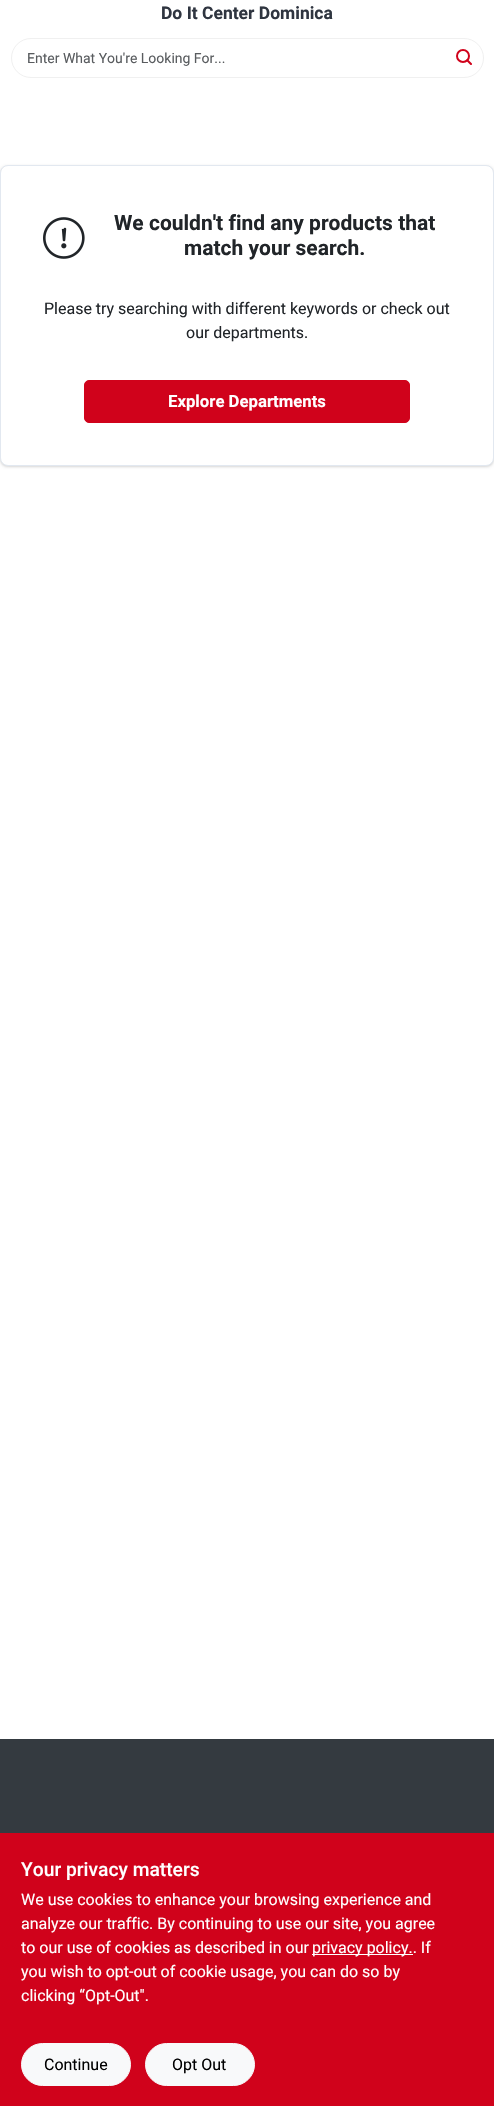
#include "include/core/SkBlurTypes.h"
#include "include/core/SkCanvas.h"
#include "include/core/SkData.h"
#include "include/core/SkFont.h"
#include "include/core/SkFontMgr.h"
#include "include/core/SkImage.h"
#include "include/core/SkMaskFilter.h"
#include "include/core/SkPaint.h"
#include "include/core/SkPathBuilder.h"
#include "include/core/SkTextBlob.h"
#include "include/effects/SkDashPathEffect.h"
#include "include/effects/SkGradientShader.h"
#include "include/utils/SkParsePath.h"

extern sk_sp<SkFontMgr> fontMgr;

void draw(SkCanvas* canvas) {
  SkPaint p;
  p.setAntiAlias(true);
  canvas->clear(SK_ColorWHITE);
  p.setStyle(SkPaint::kStroke_Style);
  p.setStrokeWidth(1);
  p.setColor(SkColorSetRGB(240, 240, 240));
  canvas->drawRoundRect(SkRect::MakeLTRB(11.5f, 38.5f, 483.5f, 77.5f), 19.5f, 19.5f, p);
  canvas->drawImageRect(SkImages::DeferredFromEncodedData(SkData::MakeFromFileName("images/1.png")), SkRect::MakeLTRB(456, 49, 472, 65), SkSamplingOptions());
  p.setStyle(SkPaint::kFill_Style);
  p.setColor(SkColorSetARGB(15, 0, 0, 0));
  p.setMaskFilter(SkMaskFilter::MakeBlur(kNormal_SkBlurStyle, 1));
  canvas->drawRoundRect(SkRect::MakeLTRB(0, 166, 494, 467), 8, 8, p);
  p.setMaskFilter(nullptr);
  p.setColor(SkColorSetARGB(26, 0, 0, 0));
  p.setMaskFilter(SkMaskFilter::MakeBlur(kNormal_SkBlurStyle, 1.5f));
  canvas->drawRoundRect(SkRect::MakeLTRB(0, 166, 494, 467), 8, 8, p);
  p.setMaskFilter(nullptr);
  p.setColor(SK_ColorWHITE);
  canvas->drawRoundRect(SkRect::MakeLTRB(0.5f, 165.5f, 493.5f, 465.5f), 7.5f, 7.5f, p);
  p.setStyle(SkPaint::kStroke_Style);
  p.setColor(SkColorSetRGB(226, 232, 240));
  canvas->drawRoundRect(SkRect::MakeLTRB(0.5f, 165.5f, 493.5f, 465.5f), 7.5f, 7.5f, p);
  canvas->drawImageRect(SkImages::DeferredFromEncodedData(SkData::MakeFromFileName("images/2.png")), SkRect::MakeLTRB(43, 217, 85, 259), SkSamplingOptions());
  p.setStyle(SkPaint::kFill_Style);
  p.setColor(SkColorSetRGB(208, 2, 27));
  canvas->drawRoundRect(SkRect::MakeLTRB(84.5f, 380.5f, 409.5f, 422.5f), 4.5f, 4.5f, p);
  p.setStyle(SkPaint::kStroke_Style);
  canvas->drawRoundRect(SkRect::MakeLTRB(84.5f, 380.5f, 409.5f, 422.5f), 4.5f, 4.5f, p);
  p.setStyle(SkPaint::kFill_Style);
  p.setColor(SkColorSetRGB(52, 58, 64));
  canvas->drawRect(SkRect::MakeLTRB(0, 1739, 494, 1833), p);
  p.setColor(SkColorSetRGB(208, 2, 27));
  canvas->drawRect(SkRect::MakeLTRB(0, 1833, 494, 2106), p);
  p.setColor(SK_ColorWHITE);
  canvas->drawRect(SkRect::MakeLTRB(312, 1954, 413, 1955), p);
  p.setColor(SkColorSetRGB(248, 249, 250));
  canvas->drawRoundRect(SkRect::MakeLTRB(21.5f, 2043.5f, 130.5f, 2085.5f), 21, 21, p);
  p.setStyle(SkPaint::kStroke_Style);
  canvas->drawRoundRect(SkRect::MakeLTRB(21.5f, 2043.5f, 130.5f, 2085.5f), 21, 21, p);
  p.setStyle(SkPaint::kFill_Style);
  canvas->drawRoundRect(SkRect::MakeLTRB(145.5f, 2043.5f, 254.5f, 2085.5f), 21, 21, p);
  p.setStyle(SkPaint::kStroke_Style);
  canvas->drawRoundRect(SkRect::MakeLTRB(145.5f, 2043.5f, 254.5f, 2085.5f), 21, 21, p);
  SkFont font1(fontMgr->matchFamilyStyle("Roboto", SkFontStyle::Bold()), 17.5f);
  font1.setSubpixel(true);
  p.setStyle(SkPaint::kFill_Style);
  p.setColor(SkColorSetRGB(47, 53, 64));
  canvas->drawString("Do It Center Dominica", 161, 19, font1, p);
  SkFont font2(fontMgr->matchFamilyStyle("Roboto", SkFontStyle::Normal()), 14);
  font2.setSubpixel(true);
  p.setColor(SkColorSetRGB(89, 92, 95));
  canvas->drawString("Enter What You're Looking For...", 27, 63, font2, p);
  SkFont font3(fontMgr->matchFamilyStyle("Roboto", SkFontStyle::Bold()), 21);
  font3.setSubpixel(true);
  p.setColor(SkColorSetRGB(33, 37, 41));
  canvas->drawString("We couldn't find any products that", 114, 230, font3, p);
  canvas->drawString("match your search.", 184, 255, font3, p);
  SkFont font4(fontMgr->matchFamilyStyle("Roboto", SkFontStyle::Normal()), 16);
  font4.setSubpixel(true);
  canvas->drawString("Please try searching with different keywords or check out", 44, 314, font4, p);
  canvas->drawString("our departments.", 186, 338, font4, p);
  SkFont font5(fontMgr->matchFamilyStyle("Roboto", SkFontStyle::Bold()), 16.75f);
  font5.setSubpixel(true);
  p.setColor(SK_ColorWHITE);
  canvas->drawString("Explore Departments", 168, 407, font5, p);
  SkFont font6(fontMgr->matchFamilyStyle("Roboto", SkFontStyle(500, SkFontStyle::kNormal_Width, SkFontStyle::kUpright_Slant)), 19.25f);
  font6.setSubpixel(true);
  canvas->drawString("Your privacy matters", 21, 1876, font6, p);
  canvas->drawString("We use cookies to enhance your browsing experience and", 21, 1905, font4, p);
  canvas->drawString("analyze our traffic. By continuing to use our site, you agree", 21, 1929, font4, p);
  canvas->drawString("to our use of cookies as described in our", 21, 1953, font4, p);
  canvas->drawString("privacy policy.. If", 312, 1953, font4, p);
  canvas->drawString("you wish to opt-out of cookie usage, you can do so by", 21, 1977, font4, p);
  canvas->drawString("clicking “Opt-Out\".", 21, 2001, font4, p);
  p.setColor(SK_ColorBLACK);
  canvas->drawString("Continue", 44, 2070, font4, p);
  canvas->drawString("Opt Out", 172, 2070, font4, p);
}
